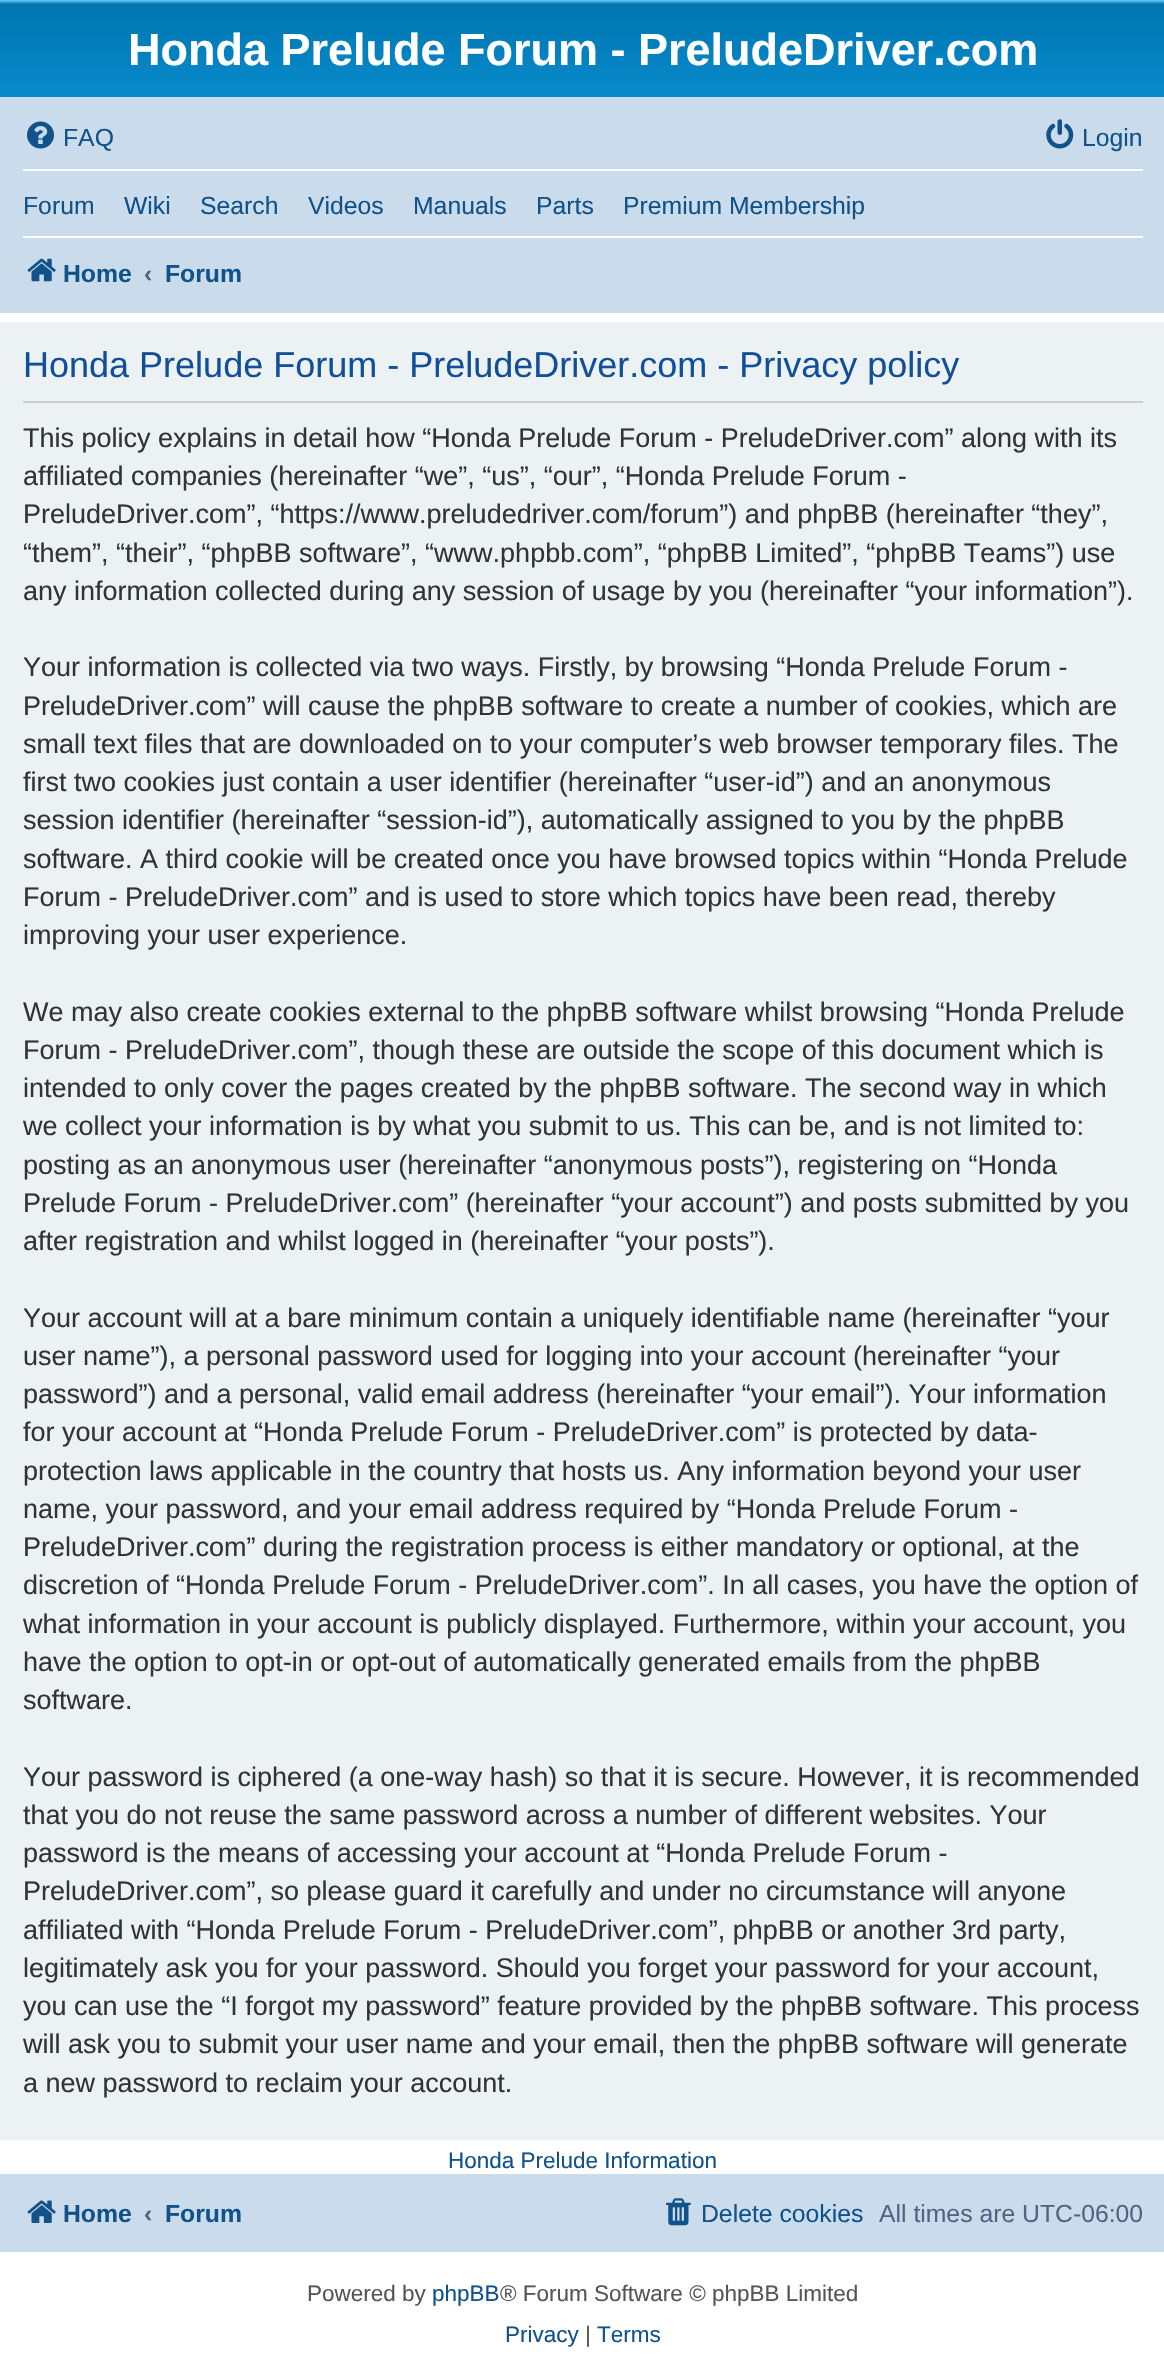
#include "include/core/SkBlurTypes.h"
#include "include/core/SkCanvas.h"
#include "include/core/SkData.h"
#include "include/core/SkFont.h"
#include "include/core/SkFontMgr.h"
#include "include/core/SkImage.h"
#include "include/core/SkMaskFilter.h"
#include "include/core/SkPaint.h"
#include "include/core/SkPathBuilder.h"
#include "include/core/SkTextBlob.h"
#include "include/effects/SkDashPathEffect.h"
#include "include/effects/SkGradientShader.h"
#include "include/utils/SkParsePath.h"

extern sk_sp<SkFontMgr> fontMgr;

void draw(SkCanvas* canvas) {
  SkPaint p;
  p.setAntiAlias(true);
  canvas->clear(SK_ColorWHITE);
  {
    const SkColor colors[] = {SkColorSetRGB(106, 206, 255), SkColorSetRGB(0, 118, 177), SkColorSetRGB(18, 163, 235)};
    const float stops[] = {0, 0.02f, 1};
    const SkPoint ends[] = {{583, 0}, {583, 207}};
    p.setShader(SkGradientShader::MakeLinear(ends, colors, stops, 3, SkTileMode::kClamp));
    p.setAlpha(255);
  }
  canvas->drawRect(SkRect::MakeLTRB(0, 0, 1164, 97), p);
  p.setShader(nullptr);
  p.setColor(SkColorSetRGB(202, 220, 235));
  canvas->drawRect(SkRect::MakeLTRB(0, 97, 1164, 313), p);
  canvas->drawImageRect(SkImages::DeferredFromEncodedData(SkData::MakeFromFileName("images/1.png")), SkRect::MakeLTRB(27, 121, 54, 149), SkSamplingOptions());
  canvas->drawImageRect(SkImages::DeferredFromEncodedData(SkData::MakeFromFileName("images/2.png")), SkRect::MakeLTRB(1046, 119, 1074, 149), SkSamplingOptions());
  p.setColor(SK_ColorWHITE);
  canvas->drawRect(SkRect::MakeLTRB(23, 169, 1143, 171), p);
  canvas->drawRect(SkRect::MakeLTRB(23, 236, 1143, 238), p);
  canvas->drawImageRect(SkImages::DeferredFromEncodedData(SkData::MakeFromFileName("images/3.png")), SkRect::MakeLTRB(27, 258, 56, 282), SkSamplingOptions());
  p.setColor(SkColorSetRGB(236, 241, 243));
  canvas->drawRect(SkRect::MakeLTRB(0, 322, 1164, 2140), p);
  p.setColor(SkColorSetRGB(204, 204, 204));
  canvas->drawRect(SkRect::MakeLTRB(23, 401, 1143, 403), p);
  p.setColor(SkColorSetRGB(202, 220, 235));
  canvas->drawRect(SkRect::MakeLTRB(0, 2174, 1164, 2252), p);
  canvas->drawImageRect(SkImages::DeferredFromEncodedData(SkData::MakeFromFileName("images/4.png")), SkRect::MakeLTRB(27, 2200, 56, 2223), SkSamplingOptions());
  canvas->drawImageRect(SkImages::DeferredFromEncodedData(SkData::MakeFromFileName("images/5.png")), SkRect::MakeLTRB(666, 2198, 691, 2226), SkSamplingOptions());
  SkFont font1(fontMgr->matchFamilyStyle("Liberation Sans", SkFontStyle::Bold()), 45);
  font1.setSubpixel(true);
  p.setColor(SK_ColorWHITE);
  canvas->drawString("Honda Prelude Forum - PreludeDriver.com", 128, 65, font1, p);
  SkFont font2(fontMgr->matchFamilyStyle("Liberation Sans", SkFontStyle::Normal()), 24.75f);
  font2.setSubpixel(true);
  p.setColor(SkColorSetRGB(16, 82, 137));
  canvas->drawString("FAQ", 63, 146, font2, p);
  canvas->drawString("Login", 1082, 146, font2, p);
  canvas->drawString("Forum", 23, 214, font2, p);
  canvas->drawString("Wiki", 124, 214, font2, p);
  canvas->drawString("Search", 200, 214, font2, p);
  canvas->drawString("Videos", 308, 214, font2, p);
  canvas->drawString("Manuals", 413, 214, font2, p);
  canvas->drawString("Parts", 536, 214, font2, p);
  canvas->drawString("Premium Membership", 623, 214, font2, p);
  SkFont font3(fontMgr->matchFamilyStyle("Liberation Sans", SkFontStyle::Bold()), 24.75f);
  font3.setSubpixel(true);
  canvas->drawString("Home", 63, 282, font3, p);
  p.setColor(SkColorSetRGB(83, 100, 130));
  canvas->drawString("‹", 144, 282, font3, p);
  p.setColor(SkColorSetRGB(16, 82, 137));
  canvas->drawString("Forum", 165, 282, font3, p);
  SkFont font4(fontMgr->matchFamilyStyle("Liberation Sans", SkFontStyle::Normal()), 36);
  font4.setSubpixel(true);
  p.setColor(SkColorSetRGB(17, 80, 152));
  canvas->drawString("Honda Prelude Forum - PreludeDriver.com - Privacy policy", 23, 377, font4, p);
  SkFont font5(fontMgr->matchFamilyStyle("Liberation Sans", SkFontStyle::Normal()), 27);
  font5.setSubpixel(true);
  p.setColor(SkColorSetRGB(51, 51, 51));
  canvas->drawString("This policy explains in detail how “Honda Prelude Forum - PreludeDriver.com” along with its", 23, 447, font5, p);
  canvas->drawString("affiliated companies (hereinafter “we”, “us”, “our”, “Honda Prelude Forum -", 23, 485, font5, p);
  canvas->drawString("PreludeDriver.com”, “https://www.preludedriver.com/forum”) and phpBB (hereinafter “they”,", 23, 523, font5, p);
  canvas->drawString("“them”, “their”, “phpBB software”, “www.phpbb.com”, “phpBB Limited”, “phpBB Teams”) use", 23, 562, font5, p);
  canvas->drawString("any information collected during any session of usage by you (hereinafter “your information”).", 23, 600, font5, p);
  canvas->drawString("Your information is collected via two ways. Firstly, by browsing “Honda Prelude Forum -", 23, 676, font5, p);
  canvas->drawString("PreludeDriver.com” will cause the phpBB software to create a number of cookies, which are", 23, 715, font5, p);
  canvas->drawString("small text files that are downloaded on to your computer’s web browser temporary files. The", 23, 753, font5, p);
  canvas->drawString("first two cookies just contain a user identifier (hereinafter “user-id”) and an anonymous", 23, 791, font5, p);
  canvas->drawString("session identifier (hereinafter “session-id”), automatically assigned to you by the phpBB", 23, 829, font5, p);
  canvas->drawString("software. A third cookie will be created once you have browsed topics within “Honda Prelude", 23, 868, font5, p);
  canvas->drawString("Forum - PreludeDriver.com” and is used to store which topics have been read, thereby", 23, 906, font5, p);
  canvas->drawString("improving your user experience.", 23, 944, font5, p);
  canvas->drawString("We may also create cookies external to the phpBB software whilst browsing “Honda Prelude", 23, 1021, font5, p);
  canvas->drawString("Forum - PreludeDriver.com”, though these are outside the scope of this document which is", 23, 1059, font5, p);
  canvas->drawString("intended to only cover the pages created by the phpBB software. The second way in which", 23, 1097, font5, p);
  canvas->save();
  canvas->clipRect(SkRect::MakeLTRB(23, 333, 1143, 2129));
  canvas->drawString("we collect your information is by what you submit to us. This can be, and is not limited to:", 23, 1135, font5, p);
  canvas->restore();
  canvas->drawString("posting as an anonymous user (hereinafter “anonymous posts”), registering on “Honda", 23, 1174, font5, p);
  canvas->drawString("Prelude Forum - PreludeDriver.com” (hereinafter “your account”) and posts submitted by you", 23, 1212, font5, p);
  canvas->drawString("after registration and whilst logged in (hereinafter “your posts”).", 23, 1250, font5, p);
  canvas->drawString("Your account will at a bare minimum contain a uniquely identifiable name (hereinafter “your", 23, 1327, font5, p);
  canvas->drawString("user name”), a personal password used for logging into your account (hereinafter “your", 23, 1365, font5, p);
  canvas->drawString("password”) and a personal, valid email address (hereinafter “your email”). Your information", 23, 1403, font5, p);
  canvas->drawString("for your account at “Honda Prelude Forum - PreludeDriver.com” is protected by data-", 23, 1441, font5, p);
  canvas->drawString("protection laws applicable in the country that hosts us. Any information beyond your user", 23, 1480, font5, p);
  canvas->drawString("name, your password, and your email address required by “Honda Prelude Forum -", 23, 1518, font5, p);
  canvas->drawString("PreludeDriver.com” during the registration process is either mandatory or optional, at the", 23, 1556, font5, p);
  canvas->drawString("discretion of “Honda Prelude Forum - PreludeDriver.com”. In all cases, you have the option of", 23, 1594, font5, p);
  canvas->save();
  canvas->clipRect(SkRect::MakeLTRB(23, 333, 1143, 2129));
  canvas->drawString("what information in your account is publicly displayed. Furthermore, within your account, you", 23, 1633, font5, p);
  canvas->restore();
  canvas->drawString("have the option to opt-in or opt-out of automatically generated emails from the phpBB", 23, 1671, font5, p);
  canvas->drawString("software.", 23, 1709, font5, p);
  canvas->drawString("Your password is ciphered (a one-way hash) so that it is secure. However, it is recommended", 23, 1786, font5, p);
  canvas->drawString("that you do not reuse the same password across a number of different websites. Your", 23, 1824, font5, p);
  canvas->drawString("password is the means of accessing your account at “Honda Prelude Forum -", 23, 1862, font5, p);
  canvas->drawString("PreludeDriver.com”, so please guard it carefully and under no circumstance will anyone", 23, 1900, font5, p);
  canvas->drawString("affiliated with “Honda Prelude Forum - PreludeDriver.com”, phpBB or another 3rd party,", 23, 1939, font5, p);
  canvas->drawString("legitimately ask you for your password. Should you forget your password for your account,", 23, 1977, font5, p);
  canvas->drawString("you can use the “I forgot my password” feature provided by the phpBB software. This process", 23, 2015, font5, p);
  canvas->save();
  canvas->clipRect(SkRect::MakeLTRB(23, 333, 1143, 2129));
  canvas->drawString("will ask you to submit your user name and your email, then the phpBB software will generate", 23, 2053, font5, p);
  canvas->restore();
  canvas->drawString("a new password to reclaim your account.", 23, 2092, font5, p);
  SkFont font6(fontMgr->matchFamilyStyle("Liberation Sans", SkFontStyle::Normal()), 22.5f);
  font6.setSubpixel(true);
  p.setColor(SkColorSetRGB(16, 82, 137));
  canvas->drawString("Honda Prelude Information", 448, 2168, font6, p);
  canvas->drawString("Home", 63, 2222, font3, p);
  p.setColor(SkColorSetRGB(83, 100, 130));
  canvas->drawString("‹", 144, 2222, font3, p);
  p.setColor(SkColorSetRGB(16, 82, 137));
  canvas->drawString("Forum", 165, 2222, font3, p);
  canvas->drawString("Delete cookies", 701, 2222, font2, p);
  p.setColor(SkColorSetRGB(83, 100, 130));
  canvas->drawString("All times are UTC-06:00", 879, 2222, font2, p);
  p.setColor(SkColorSetRGB(85, 85, 85));
  canvas->drawString("Powered by", 307, 2301, font6, p);
  p.setColor(SkColorSetRGB(16, 82, 137));
  canvas->drawString("phpBB", 432, 2301, font6, p);
  p.setColor(SkColorSetRGB(85, 85, 85));
  canvas->drawString("® Forum Software © phpBB Limited", 500, 2301, font6, p);
  p.setColor(SkColorSetRGB(16, 82, 137));
  canvas->drawString("Privacy", 505, 2342, font6, p);
  p.setColor(SkColorSetRGB(85, 85, 85));
  canvas->drawString("|", 585, 2342, font6, p);
  p.setColor(SkColorSetRGB(16, 82, 137));
  canvas->drawString("Terms", 597, 2342, font6, p);
}
